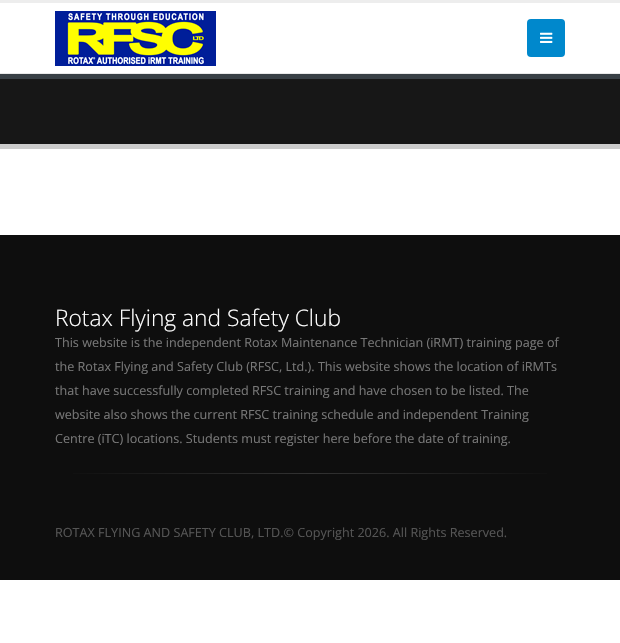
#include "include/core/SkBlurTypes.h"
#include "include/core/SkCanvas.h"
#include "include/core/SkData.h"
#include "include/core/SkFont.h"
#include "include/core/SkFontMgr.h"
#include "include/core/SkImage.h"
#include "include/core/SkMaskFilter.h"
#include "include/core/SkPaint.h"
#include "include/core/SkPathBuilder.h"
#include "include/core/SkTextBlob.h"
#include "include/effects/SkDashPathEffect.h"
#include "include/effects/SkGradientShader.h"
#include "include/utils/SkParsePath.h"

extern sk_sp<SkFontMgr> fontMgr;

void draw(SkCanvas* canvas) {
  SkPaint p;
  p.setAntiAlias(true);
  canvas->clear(SK_ColorWHITE);
  p.setColor(SkColorSetRGB(237, 237, 237));
  canvas->drawRect(SkRect::MakeLTRB(0, 0, 620, 3), p);
  p.setColor(SkColorSetRGB(233, 233, 233));
  canvas->drawRect(SkRect::MakeLTRB(0, 73, 620, 74), p);
  canvas->drawImageRect(SkImages::DeferredFromEncodedData(SkData::MakeFromFileName("images/1.png")), SkRect::MakeLTRB(55, 11, 216, 66), SkSamplingOptions());
  p.setColor(SkColorSetRGB(0, 136, 204));
  canvas->drawRoundRect(SkRect::MakeLTRB(527, 19, 565, 57), 4, 4, p);
  canvas->drawImageRect(SkImages::DeferredFromEncodedData(SkData::MakeFromFileName("images/2.png")), SkRect::MakeLTRB(540, 32, 553, 43), SkSamplingOptions());
  p.setColor(SkColorSetRGB(23, 23, 23));
  canvas->drawRect(SkRect::MakeLTRB(0, 79, 620, 144), p);
  p.setColor(SkColorSetRGB(56, 64, 69));
  canvas->drawRect(SkRect::MakeLTRB(0, 74, 620, 79), p);
  p.setColor(SkColorSetRGB(204, 204, 204));
  canvas->drawRect(SkRect::MakeLTRB(0, 144, 620, 149), p);
  p.setColor(SkColorSetRGB(14, 14, 14));
  canvas->drawRect(SkRect::MakeLTRB(0, 235, 620, 580), p);
  {
    const SkColor colors[] = {SkColorSetRGB(14, 14, 14), SkColorSetRGB(50, 50, 50), SkColorSetRGB(14, 14, 14)};
    const float stops[] = {0, 0.5f, 1};
    const SkPoint ends[] = {{55, 474}, {565, 474}};
    p.setShader(SkGradientShader::MakeLinear(ends, colors, stops, 3, SkTileMode::kClamp));
    p.setAlpha(255);
  }
  canvas->drawRect(SkRect::MakeLTRB(73, 473, 547, 474), p);
  SkFont font1(fontMgr->matchFamilyStyle("Open Sans", SkFontStyle(300, SkFontStyle::kNormal_Width, SkFontStyle::kUpright_Slant)), 22.75f);
  font1.setSubpixel(true);
  p.setShader(nullptr);
  p.setColor(SK_ColorWHITE);
  canvas->drawString("Rotax Flying and Safety Club", 55, 326, font1, p);
  SkFont font2(fontMgr->matchFamilyStyle("Open Sans", SkFontStyle::Normal()), 12.6f);
  font2.setSubpixel(true);
  p.setColor(SkColorSetRGB(119, 119, 119));
  canvas->drawString("This website is the independent Rotax Maintenance Technician (iRMT) training page of", 55, 347, font2, p);
  canvas->drawString("the Rotax Flying and Safety Club (RFSC, Ltd.). This website shows the location of iRMTs", 55, 371, font2, p);
  canvas->drawString("that have successfully completed RFSC training and have chosen to be listed. The", 55, 395, font2, p);
  canvas->drawString("website also shows the current RFSC training schedule and independent Training", 55, 419, font2, p);
  canvas->drawString("Centre (iTC) locations. Students must register here before the date of training.", 55, 443, font2, p);
  p.setColor(SkColorSetRGB(85, 85, 85));
  canvas->drawString("ROTAX FLYING AND SAFETY CLUB, LTD.© Copyright 2026. All Rights Reserved.", 55, 537, font2, p);
}
